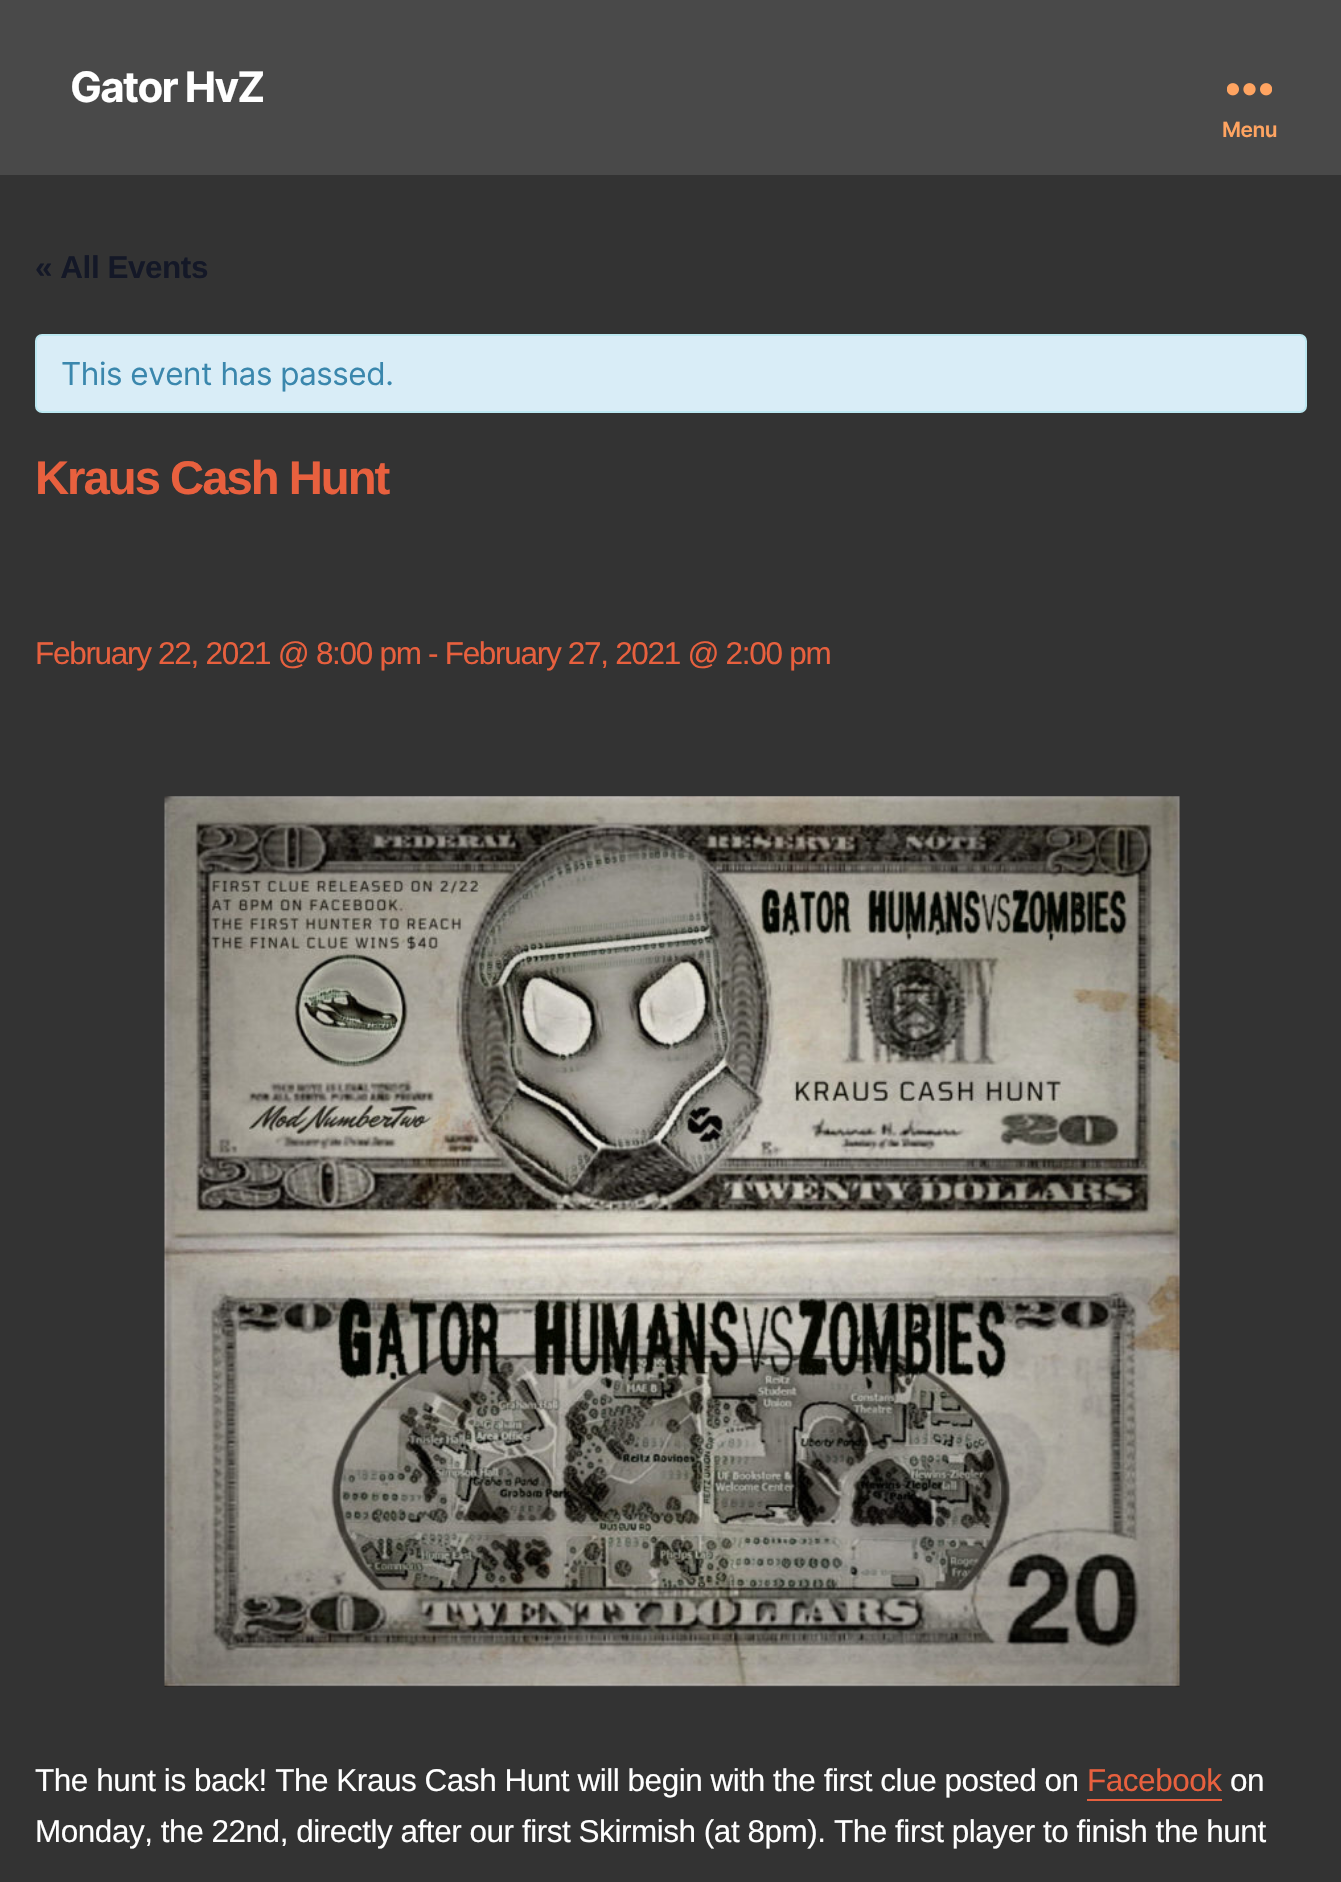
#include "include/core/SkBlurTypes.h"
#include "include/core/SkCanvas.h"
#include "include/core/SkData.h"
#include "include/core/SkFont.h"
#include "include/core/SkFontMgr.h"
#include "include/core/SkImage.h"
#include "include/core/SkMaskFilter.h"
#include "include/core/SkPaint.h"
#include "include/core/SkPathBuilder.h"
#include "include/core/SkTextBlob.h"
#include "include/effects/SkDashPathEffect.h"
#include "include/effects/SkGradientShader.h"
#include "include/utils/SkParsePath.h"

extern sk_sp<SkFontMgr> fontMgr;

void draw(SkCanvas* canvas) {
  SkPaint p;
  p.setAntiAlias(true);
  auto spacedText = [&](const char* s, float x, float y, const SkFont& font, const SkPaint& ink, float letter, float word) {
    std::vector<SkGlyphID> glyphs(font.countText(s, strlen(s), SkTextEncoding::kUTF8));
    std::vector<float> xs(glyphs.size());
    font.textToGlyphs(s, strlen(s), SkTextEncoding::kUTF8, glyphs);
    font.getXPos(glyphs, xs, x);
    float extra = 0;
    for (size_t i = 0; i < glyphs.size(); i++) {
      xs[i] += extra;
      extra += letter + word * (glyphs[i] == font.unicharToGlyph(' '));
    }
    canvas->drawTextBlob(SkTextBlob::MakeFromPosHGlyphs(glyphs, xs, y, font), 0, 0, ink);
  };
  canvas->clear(SkColorSetRGB(51, 51, 51));
  p.setColor(SkColorSetRGB(73, 73, 73));
  canvas->drawRect(SkRect::MakeLTRB(0, 0, 1341, 175), p);
  canvas->drawImageRect(SkImages::DeferredFromEncodedData(SkData::MakeFromFileName("images/1.png")), SkRect::MakeLTRB(1227, 83, 1272, 96), SkSamplingOptions());
  p.setColor(SkColorSetRGB(217, 237, 247));
  canvas->drawRoundRect(SkRect::MakeLTRB(36, 335, 1306, 412), 6, 6, p);
  p.setStyle(SkPaint::kStroke_Style);
  p.setStrokeWidth(2);
  p.setColor(SkColorSetRGB(188, 232, 241));
  canvas->drawRoundRect(SkRect::MakeLTRB(36, 335, 1306, 412), 6, 6, p);
  canvas->drawImageRect(SkImages::DeferredFromEncodedData(SkData::MakeFromFileName("images/2.png")), SkRect::MakeLTRB(164, 796, 1180, 1687), SkSamplingOptions());
  p.setStyle(SkPaint::kFill_Style);
  p.setColor(SkColorSetRGB(232, 96, 62));
  canvas->drawRect(SkRect::MakeLTRB(1087, 1799, 1222, 1801), p);
  SkFont font1(fontMgr->matchFamilyStyle("Inter", SkFontStyle::Bold()), 42);
  font1.setSubpixel(true);
  p.setColor(SK_ColorWHITE);
  spacedText("Gator HvZ", 70, 102, font1, p, -1.75f, 0);
  SkFont font2(fontMgr->matchFamilyStyle("Inter", SkFontStyle(600, SkFontStyle::kNormal_Width, SkFontStyle::kUpright_Slant)), 21);
  font2.setSubpixel(true);
  p.setColor(SkColorSetRGB(255, 164, 97));
  spacedText("Menu", 1222, 137, font2, p, -0.47f, 0);
  SkFont font3(fontMgr->matchFamilyStyle("Liberation Sans", SkFontStyle::Bold()), 31.5f);
  font3.setSubpixel(true);
  p.setColor(SkColorSetRGB(20, 24, 39));
  spacedText("« All Events", 35, 278, font3, p, -0.47f, 0);
  SkFont font4(fontMgr->matchFamilyStyle("Inter", SkFontStyle::Normal()), 31.5f);
  font4.setSubpixel(true);
  p.setColor(SkColorSetRGB(58, 135, 173));
  spacedText("This event has passed.", 61, 385, font4, p, -0.47f, 0);
  SkFont font5(fontMgr->matchFamilyStyle("Liberation Sans", SkFontStyle::Bold()), 47.25f);
  font5.setSubpixel(true);
  p.setColor(SkColorSetRGB(232, 96, 62));
  spacedText("Kraus Cash Hunt", 35, 494, font5, p, -2, 0);
  SkFont font6(fontMgr->matchFamilyStyle("Liberation Sans", SkFontStyle::Normal()), 31.5f);
  font6.setSubpixel(true);
  spacedText("February 22, 2021 @ 8:00 pm - February 27, 2021 @ 2:00 pm", 35, 664, font6, p, -1.3f, 0);
  p.setColor(SK_ColorWHITE);
  spacedText("The hunt is back! The Kraus Cash Hunt will begin with the first clue posted on", 35, 1791, font6, p, -0.47f, 0);
  p.setColor(SkColorSetRGB(232, 96, 62));
  spacedText("Facebook", 1087, 1791, font6, p, -0.47f, 0);
  p.setColor(SK_ColorWHITE);
  spacedText("on", 1230, 1791, font6, p, -0.47f, 0);
  spacedText("Monday, the 22nd, directly after our first Skirmish (at 8pm). The first player to finish the hunt", 35, 1842, font6, p, -0.47f, 0);
}
